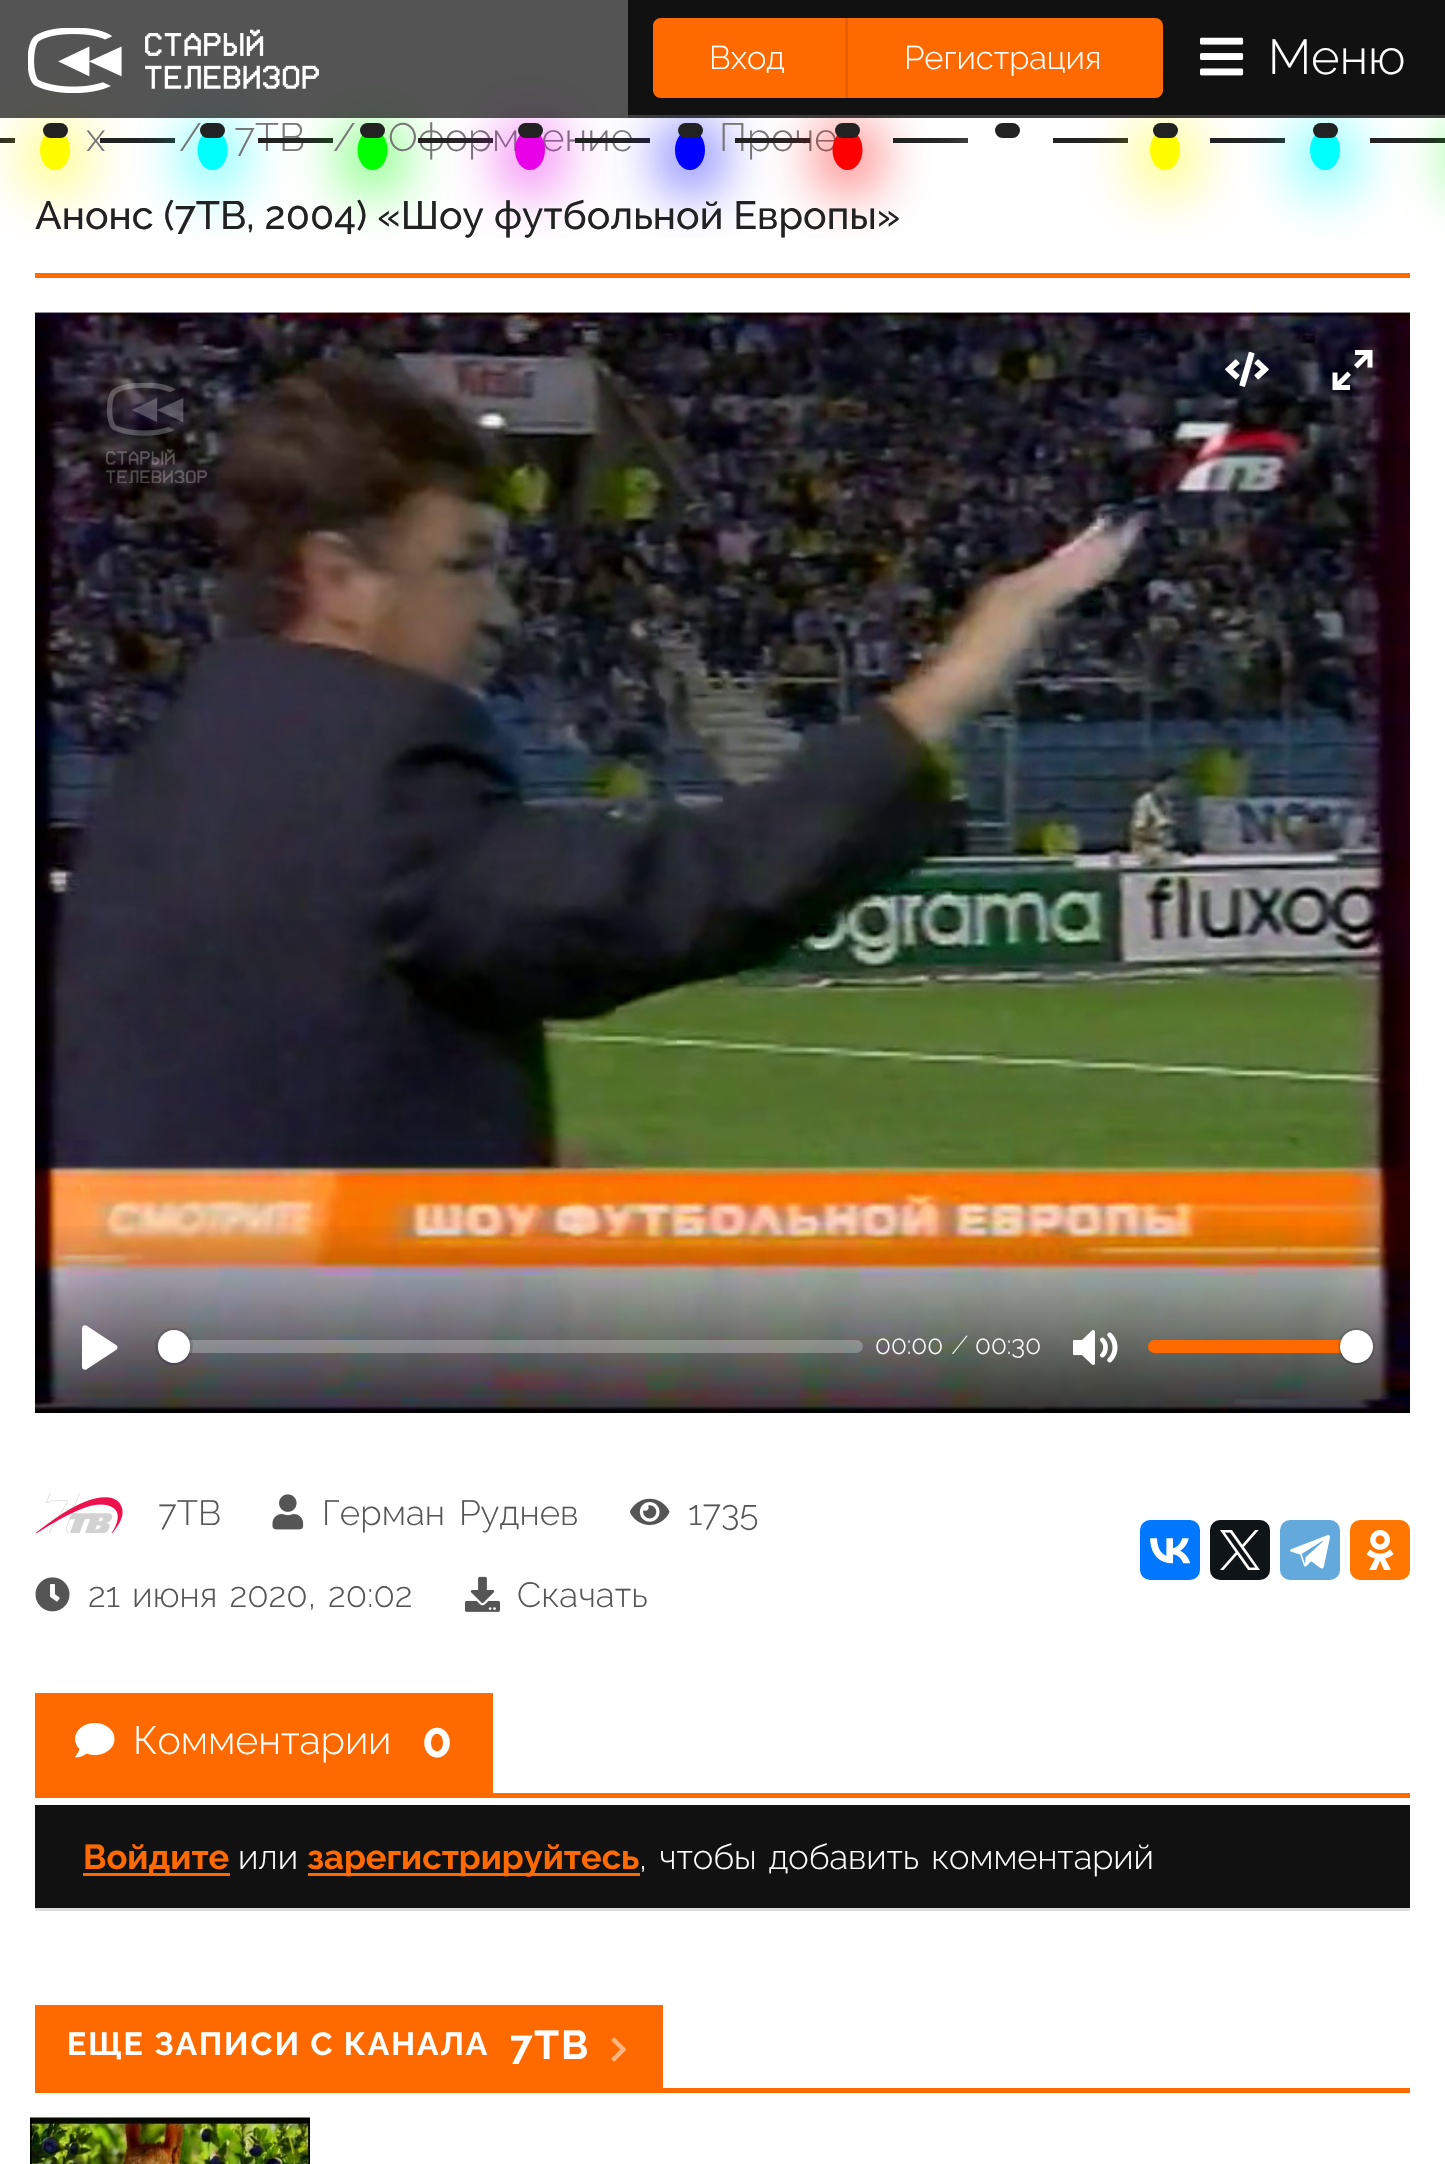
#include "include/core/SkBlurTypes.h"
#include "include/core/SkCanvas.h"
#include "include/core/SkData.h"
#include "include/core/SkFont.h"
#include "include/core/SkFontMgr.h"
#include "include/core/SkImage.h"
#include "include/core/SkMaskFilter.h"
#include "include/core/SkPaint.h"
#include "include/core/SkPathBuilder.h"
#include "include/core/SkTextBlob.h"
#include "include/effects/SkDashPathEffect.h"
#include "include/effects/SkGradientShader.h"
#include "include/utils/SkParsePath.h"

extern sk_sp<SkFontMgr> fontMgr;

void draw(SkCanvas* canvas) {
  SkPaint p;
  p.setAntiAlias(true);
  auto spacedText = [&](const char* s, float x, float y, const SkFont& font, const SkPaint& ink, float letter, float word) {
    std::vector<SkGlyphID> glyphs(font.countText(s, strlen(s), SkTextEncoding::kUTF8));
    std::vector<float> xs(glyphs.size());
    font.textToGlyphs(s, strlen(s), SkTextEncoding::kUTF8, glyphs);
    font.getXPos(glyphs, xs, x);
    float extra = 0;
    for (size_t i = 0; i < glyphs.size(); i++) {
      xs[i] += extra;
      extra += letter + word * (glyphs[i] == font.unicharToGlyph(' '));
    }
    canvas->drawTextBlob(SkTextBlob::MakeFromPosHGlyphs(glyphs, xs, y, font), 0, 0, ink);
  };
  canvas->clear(SK_ColorWHITE);
  p.setColor(SkColorSetRGB(34, 34, 34));
  canvas->drawRect(SkRect::MakeLTRB(0, 138, 15, 143), p);
  p.setColor(SkColorSetRGB(255, 106, 0));
  canvas->drawRect(SkRect::MakeLTRB(35, 273, 1410, 278), p);
  canvas->save();
  canvas->clipRect(SkRect::MakeLTRB(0, 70, 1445, 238));
  p.setColor(SkColorSetRGB(255, 253, 0));
  p.setMaskFilter(SkMaskFilter::MakeBlur(kNormal_SkBlurStyle, 30));
  canvas->drawRoundRect(SkRect::MakeLTRB(33, 130, 78, 185), 22.5f, 22.5f, p);
  p.setMaskFilter(nullptr);
  canvas->restore();
  canvas->drawOval(SkRect::MakeLTRB(40, 130, 70, 170), p);
  p.setColor(SkColorSetRGB(34, 34, 34));
  canvas->drawRoundRect(SkRect::MakeLTRB(43, 123, 68, 138), 7.5f, 7.5f, p);
  canvas->drawImageRect(SkImages::DeferredFromEncodedData(SkData::MakeFromFileName("images/3.png")), SkRect::MakeLTRB(35, 312, 1410, 313), SkSamplingOptions());
  p.setColor(SK_ColorBLACK);
  canvas->drawRect(SkRect::MakeLTRB(35, 1412, 1410, 1413), p);
  canvas->drawImageRect(SkImages::DeferredFromEncodedData(SkData::MakeFromFileName("images/4.png")), SkRect::MakeLTRB(35, 312, 1410, 1413), SkSamplingOptions());
  canvas->drawImageRect(SkImages::DeferredFromEncodedData(SkData::MakeFromFileName("images/5.png")), SkRect::MakeLTRB(1225, 351, 1269, 387), SkSamplingOptions());
  canvas->drawImageRect(SkImages::DeferredFromEncodedData(SkData::MakeFromFileName("images/6.png")), SkRect::MakeLTRB(1332, 350, 1373, 390), SkSamplingOptions());
  canvas->drawImageRect(SkImages::DeferredFromEncodedData(SkData::MakeFromFileName("images/7.png")), SkRect::MakeLTRB(106, 383, 207, 483), SkSamplingOptions());
  {
    const SkColor colors[] = {SkColorSetARGB(0, 0, 0, 0), SkColorSetARGB(191, 0, 0, 0)};
    const float stops[] = {0, 1};
    const SkPoint ends[] = {{723, 1220}, {723, 1413}};
    p.setShader(SkGradientShader::MakeLinear(ends, colors, stops, 2, SkTileMode::kClamp));
    p.setAlpha(255);
  }
  canvas->drawRect(SkRect::MakeLTRB(35, 1226, 1410, 1413), p);
  p.setShader(nullptr);
  p.setColor(SK_ColorWHITE);
  canvas->drawPath(SkPathBuilder().moveTo(116, 1345).lineTo(87, 1326).cubicTo(85, 1324, 82, 1326, 82, 1328).lineTo(82, 1367).cubicTo(82, 1369, 85, 1371, 87, 1369).lineTo(116, 1350).cubicTo(118, 1349, 118, 1346, 116, 1345).close().detach(), p);
  p.setColor(SkColorSetARGB(64, 255, 255, 255));
  canvas->drawRoundRect(SkRect::MakeLTRB(158, 1340, 863, 1353), 6.5f, 6.5f, p);
  p.setStyle(SkPaint::kStroke_Style);
  p.setStrokeWidth(3);
  p.setColor(SkColorSetARGB(51, 35, 40, 47));
  canvas->drawRoundRect(SkRect::MakeLTRB(156.5f, 1329.5f, 191.5f, 1363.5f), 17, 17, p);
  p.setStyle(SkPaint::kFill_Style);
  p.setColor(SkColorSetARGB(38, 35, 40, 47));
  p.setMaskFilter(SkMaskFilter::MakeBlur(kNormal_SkBlurStyle, 1));
  canvas->drawRoundRect(SkRect::MakeLTRB(158, 1333, 190, 1365), 16, 16, p);
  p.setMaskFilter(nullptr);
  p.setColor(SK_ColorWHITE);
  canvas->drawRoundRect(SkRect::MakeLTRB(158, 1330, 190, 1363), 16, 16, p);
  canvas->drawImageRect(SkImages::DeferredFromEncodedData(SkData::MakeFromFileName("images/8.png")), SkRect::MakeLTRB(1073, 1330, 1118, 1365), SkSamplingOptions());
  p.setColor(SkColorSetRGB(255, 106, 0));
  canvas->drawRoundRect(SkRect::MakeLTRB(1148, 1340, 1373, 1353), 6.5f, 6.5f, p);
  p.setStyle(SkPaint::kStroke_Style);
  p.setColor(SkColorSetARGB(51, 35, 40, 47));
  canvas->drawCircle(1356.5f, 1346.5f, 17, p);
  p.setStyle(SkPaint::kFill_Style);
  p.setColor(SkColorSetARGB(38, 35, 40, 47));
  p.setMaskFilter(SkMaskFilter::MakeBlur(kNormal_SkBlurStyle, 1));
  canvas->drawRoundRect(SkRect::MakeLTRB(1340, 1333, 1373, 1365), 16, 16, p);
  p.setMaskFilter(nullptr);
  p.setColor(SK_ColorWHITE);
  canvas->drawCircle(1356.5f, 1346.5f, 16.5f, p);
  canvas->drawImageRect(SkImages::DeferredFromEncodedData(SkData::MakeFromFileName("images/9.png")), SkRect::MakeLTRB(35, 1493, 123, 1533), SkSamplingOptions());
  canvas->drawImageRect(SkImages::DeferredFromEncodedData(SkData::MakeFromFileName("images/10.png")), SkRect::MakeLTRB(272, 1494, 304, 1530), SkSamplingOptions());
  canvas->drawImageRect(SkImages::DeferredFromEncodedData(SkData::MakeFromFileName("images/11.png")), SkRect::MakeLTRB(630, 1498, 670, 1525), SkSamplingOptions());
  canvas->drawImageRect(SkImages::DeferredFromEncodedData(SkData::MakeFromFileName("images/12.png")), SkRect::MakeLTRB(35, 1577, 70, 1612), SkSamplingOptions());
  canvas->drawImageRect(SkImages::DeferredFromEncodedData(SkData::MakeFromFileName("images/13.png")), SkRect::MakeLTRB(465, 1576, 500, 1612), SkSamplingOptions());
  p.setColor(SkColorSetRGB(0, 119, 255));
  canvas->drawRoundRect(SkRect::MakeLTRB(1140, 1520, 1200, 1580), 10, 10, p);
  canvas->drawImageRect(SkImages::DeferredFromEncodedData(SkData::MakeFromFileName("images/14.png")), SkRect::MakeLTRB(1150, 1538, 1191, 1564), SkSamplingOptions());
  p.setColor(SkColorSetRGB(15, 20, 25));
  canvas->drawRoundRect(SkRect::MakeLTRB(1210, 1520, 1270, 1580), 10, 10, p);
  canvas->drawImageRect(SkImages::DeferredFromEncodedData(SkData::MakeFromFileName("images/15.png")), SkRect::MakeLTRB(1220, 1530, 1260, 1570), SkSamplingOptions());
  p.setColor(SkColorSetRGB(100, 169, 220));
  canvas->drawRoundRect(SkRect::MakeLTRB(1280, 1520, 1340, 1580), 10, 10, p);
  canvas->drawImageRect(SkImages::DeferredFromEncodedData(SkData::MakeFromFileName("images/16.png")), SkRect::MakeLTRB(1290, 1535, 1330, 1569), SkSamplingOptions());
  p.setColor(SkColorSetRGB(255, 119, 0));
  canvas->drawRoundRect(SkRect::MakeLTRB(1350, 1520, 1410, 1580), 10, 10, p);
  canvas->drawImageRect(SkImages::DeferredFromEncodedData(SkData::MakeFromFileName("images/17.png")), SkRect::MakeLTRB(1366, 1530, 1394, 1570), SkSamplingOptions());
  p.setColor(SkColorSetRGB(255, 106, 0));
  canvas->drawRect(SkRect::MakeLTRB(35, 1793, 1410, 1798), p);
  canvas->drawRect(SkRect::MakeLTRB(35, 1693, 493, 1793), p);
  canvas->drawImageRect(SkImages::DeferredFromEncodedData(SkData::MakeFromFileName("images/18.png")), SkRect::MakeLTRB(75, 1723, 115, 1758), SkSamplingOptions());
  p.setColor(SkColorSetRGB(221, 221, 221));
  canvas->drawRect(SkRect::MakeLTRB(35, 1908, 1410, 1911), p);
  p.setColor(SkColorSetRGB(17, 17, 17));
  canvas->drawRect(SkRect::MakeLTRB(35, 1805, 1410, 1908), p);
  p.setColor(SkColorSetRGB(255, 106, 0));
  canvas->drawRect(SkRect::MakeLTRB(83, 1873, 230, 1876), p);
  canvas->drawRect(SkRect::MakeLTRB(308, 1873, 640, 1876), p);
  canvas->drawRect(SkRect::MakeLTRB(35, 2088, 1410, 2093), p);
  canvas->drawRect(SkRect::MakeLTRB(35, 2005, 663, 2088), p);
  canvas->drawImageRect(SkImages::DeferredFromEncodedData(SkData::MakeFromFileName("images/19.png")), SkRect::MakeLTRB(611, 2037, 626, 2062), SkSamplingOptions());
  canvas->drawImageRect(SkImages::DeferredFromEncodedData(SkData::MakeFromFileName("images/20.png")), SkRect::MakeLTRB(30, 2117, 310, 2164), SkSamplingOptions());
  SkFont font1(fontMgr->matchFamilyStyle("Raleway", SkFontStyle(300, SkFontStyle::kNormal_Width, SkFontStyle::kUpright_Slant)), 39.4f);
  font1.setSubpixel(true);
  p.setColor(SkColorSetRGB(119, 119, 119));
  canvas->drawString("х", 86, 151, font1, p);
  p.setColor(SkColorSetRGB(34, 34, 34));
  canvas->drawRect(SkRect::MakeLTRB(100, 138, 175, 143), p);
  canvas->save();
  canvas->clipRect(SkRect::MakeLTRB(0, 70, 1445, 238));
  p.setColor(SkColorSetRGB(0, 255, 253));
  p.setMaskFilter(SkMaskFilter::MakeBlur(kNormal_SkBlurStyle, 30));
  canvas->drawRoundRect(SkRect::MakeLTRB(190, 130, 235, 185), 22.5f, 22.5f, p);
  p.setMaskFilter(nullptr);
  canvas->restore();
  p.setColor(SkColorSetRGB(119, 119, 119));
  canvas->drawString("/", 179, 151, font1, p);
  p.setColor(SkColorSetRGB(0, 255, 253));
  canvas->drawOval(SkRect::MakeLTRB(197.5f, 130, 227.5f, 170), p);
  p.setColor(SkColorSetRGB(34, 34, 34));
  canvas->drawRoundRect(SkRect::MakeLTRB(200, 123, 225, 138), 7.5f, 7.5f, p);
  p.setColor(SkColorSetRGB(119, 119, 119));
  canvas->drawString("7ТВ", 234, 151, font1, p);
  p.setColor(SkColorSetRGB(34, 34, 34));
  canvas->drawRect(SkRect::MakeLTRB(258, 138, 333, 143), p);
  canvas->save();
  canvas->clipRect(SkRect::MakeLTRB(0, 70, 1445, 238));
  p.setColor(SkColorSetRGB(0, 255, 0));
  p.setMaskFilter(SkMaskFilter::MakeBlur(kNormal_SkBlurStyle, 30));
  canvas->drawRoundRect(SkRect::MakeLTRB(350, 130, 395, 185), 22.5f, 22.5f, p);
  p.setMaskFilter(nullptr);
  canvas->restore();
  canvas->drawOval(SkRect::MakeLTRB(357.5f, 130, 387.5f, 170), p);
  p.setColor(SkColorSetRGB(34, 34, 34));
  canvas->drawRoundRect(SkRect::MakeLTRB(360, 123, 385, 138), 7.5f, 7.5f, p);
  p.setColor(SkColorSetRGB(119, 119, 119));
  canvas->drawString("/", 333, 151, font1, p);
  canvas->drawString("Оформление", 388, 151, font1, p);
  p.setColor(SkColorSetRGB(34, 34, 34));
  canvas->drawRect(SkRect::MakeLTRB(418, 138, 493, 143), p);
  canvas->save();
  canvas->clipRect(SkRect::MakeLTRB(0, 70, 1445, 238));
  p.setColor(SkColorSetRGB(231, 0, 232));
  p.setMaskFilter(SkMaskFilter::MakeBlur(kNormal_SkBlurStyle, 30));
  canvas->drawRoundRect(SkRect::MakeLTRB(508, 130, 553, 185), 22.5f, 22.5f, p);
  p.setMaskFilter(nullptr);
  canvas->restore();
  p.setColor(SkColorSetRGB(34, 34, 34));
  canvas->drawRect(SkRect::MakeLTRB(575, 138, 650, 143), p);
  canvas->save();
  canvas->clipRect(SkRect::MakeLTRB(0, 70, 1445, 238));
  p.setColor(SkColorSetRGB(0, 0, 255));
  p.setMaskFilter(SkMaskFilter::MakeBlur(kNormal_SkBlurStyle, 30));
  canvas->drawRoundRect(SkRect::MakeLTRB(668, 130, 713, 185), 22.5f, 22.5f, p);
  p.setMaskFilter(nullptr);
  canvas->restore();
  canvas->drawOval(SkRect::MakeLTRB(675, 130, 705, 170), p);
  p.setColor(SkColorSetRGB(34, 34, 34));
  canvas->drawRoundRect(SkRect::MakeLTRB(678, 123, 703, 138), 7.5f, 7.5f, p);
  p.setColor(SkColorSetRGB(231, 0, 232));
  canvas->drawOval(SkRect::MakeLTRB(515, 130, 545, 170), p);
  p.setColor(SkColorSetRGB(34, 34, 34));
  canvas->drawRoundRect(SkRect::MakeLTRB(518, 123, 543, 138), 7.5f, 7.5f, p);
  p.setColor(SkColorSetRGB(119, 119, 119));
  canvas->drawString("Проче", 719, 151, font1, p);
  p.setColor(SkColorSetRGB(34, 34, 34));
  canvas->drawRect(SkRect::MakeLTRB(735, 138, 810, 143), p);
  canvas->save();
  canvas->clipRect(SkRect::MakeLTRB(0, 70, 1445, 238));
  p.setColor(SkColorSetRGB(253, 0, 0));
  p.setMaskFilter(SkMaskFilter::MakeBlur(kNormal_SkBlurStyle, 30));
  canvas->drawRoundRect(SkRect::MakeLTRB(825, 130, 870, 185), 22.5f, 22.5f, p);
  p.setMaskFilter(nullptr);
  canvas->restore();
  p.setColor(SkColorSetRGB(34, 34, 34));
  canvas->drawRect(SkRect::MakeLTRB(893, 138, 968, 143), p);
  canvas->save();
  canvas->clipRect(SkRect::MakeLTRB(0, 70, 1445, 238));
  canvas->clipPath(SkPathBuilder(SkPathFillType::kEvenOdd).moveTo(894, 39).lineTo(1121, 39).lineTo(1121, 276).lineTo(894, 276).close().moveTo(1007.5f, 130).cubicTo(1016, 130, 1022.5f, 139, 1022.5f, 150).cubicTo(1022.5f, 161, 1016, 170, 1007.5f, 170).cubicTo(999, 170, 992.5f, 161, 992.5f, 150).cubicTo(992.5f, 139, 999, 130, 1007.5f, 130).close().detach(), true);
  p.setColor(SK_ColorWHITE);
  p.setMaskFilter(SkMaskFilter::MakeBlur(kNormal_SkBlurStyle, 30));
  canvas->drawRoundRect(SkRect::MakeLTRB(985, 130, 1030, 185), 22.5f, 22.5f, p);
  p.setMaskFilter(nullptr);
  canvas->restore();
  p.setColor(SkColorSetRGB(34, 34, 34));
  canvas->drawRect(SkRect::MakeLTRB(1053, 138, 1128, 143), p);
  canvas->save();
  canvas->clipRect(SkRect::MakeLTRB(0, 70, 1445, 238));
  p.setColor(SkColorSetRGB(255, 253, 0));
  p.setMaskFilter(SkMaskFilter::MakeBlur(kNormal_SkBlurStyle, 30));
  canvas->drawRoundRect(SkRect::MakeLTRB(1143, 130, 1188, 185), 22.5f, 22.5f, p);
  p.setMaskFilter(nullptr);
  canvas->restore();
  p.setColor(SkColorSetRGB(34, 34, 34));
  canvas->drawRect(SkRect::MakeLTRB(1210, 138, 1285, 143), p);
  canvas->save();
  canvas->clipRect(SkRect::MakeLTRB(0, 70, 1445, 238));
  p.setColor(SkColorSetRGB(0, 255, 253));
  p.setMaskFilter(SkMaskFilter::MakeBlur(kNormal_SkBlurStyle, 30));
  canvas->drawRoundRect(SkRect::MakeLTRB(1303, 130, 1348, 185), 22.5f, 22.5f, p);
  p.setMaskFilter(nullptr);
  canvas->restore();
  p.setColor(SkColorSetRGB(34, 34, 34));
  canvas->drawRect(SkRect::MakeLTRB(1370, 138, 1445, 143), p);
  p.setColor(SkColorSetRGB(0, 255, 0));
  p.setMaskFilter(SkMaskFilter::MakeBlur(kNormal_SkBlurStyle, 30));
  canvas->drawRoundRect(SkRect::MakeLTRB(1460, 130, 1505, 185), 22.5f, 22.5f, p);
  p.setMaskFilter(nullptr);
  p.setColor(SkColorSetARGB(191, 0, 0, 0));
  canvas->drawRect(SkRect::MakeLTRB(0, 0, 1445, 118), p);
  p.setColor(SkColorSetARGB(26, 255, 255, 255));
  canvas->drawRect(SkRect::MakeLTRB(0, 0, 628, 118), p);
  canvas->drawImageRect(SkImages::DeferredFromEncodedData(SkData::MakeFromFileName("images/1.png")), SkRect::MakeLTRB(28, 28, 319, 93), SkSamplingOptions());
  p.setColor(SkColorSetRGB(17, 17, 17));
  canvas->drawRect(SkRect::MakeLTRB(628, 0, 1445, 115), p);
  SkFont font2(fontMgr->matchFamilyStyle("Raleway", SkFontStyle(300, SkFontStyle::kNormal_Width, SkFontStyle::kUpright_Slant)), 49);
  font2.setSubpixel(true);
  p.setColor(SK_ColorWHITE);
  canvas->drawString("Меню", 1268, 74, font2, p);
  canvas->drawImageRect(SkImages::DeferredFromEncodedData(SkData::MakeFromFileName("images/2.png")), SkRect::MakeLTRB(1200, 37, 1244, 76), SkSamplingOptions());
  p.setColor(SkColorSetRGB(255, 106, 0));
  canvas->drawPath(SkPathBuilder().moveTo(848, 18).lineTo(1155, 18).cubicTo(1159.5f, 18, 1163, 21.5f, 1163, 26).lineTo(1163, 90).cubicTo(1163, 94.5f, 1159.5f, 98, 1155, 98).lineTo(848, 98).close().detach(), p);
  SkFont font3(fontMgr->matchFamilyStyle("Raleway", SkFontStyle(300, SkFontStyle::kNormal_Width, SkFontStyle::kUpright_Slant)), 32.75f);
  font3.setSubpixel(true);
  p.setColor(SK_ColorWHITE);
  canvas->drawString("Регистрация", 904, 69, font3, p);
  p.setColor(SkColorSetRGB(255, 106, 0));
  canvas->drawPath(SkPathBuilder().moveTo(661, 18).lineTo(848, 18).lineTo(848, 98).lineTo(661, 98).cubicTo(656.5f, 98, 653, 94.5f, 653, 90).lineTo(653, 26).cubicTo(653, 21.5f, 656.5f, 18, 661, 18).close().detach(), p);
  p.setColor(SK_ColorWHITE);
  canvas->drawString("Вход", 709, 69, font3, p);
  p.setColor(SkColorSetRGB(230, 95, 0));
  canvas->drawRect(SkRect::MakeLTRB(845, 18, 848, 98), p);
  p.setColor(SkColorSetRGB(0, 255, 253));
  canvas->drawOval(SkRect::MakeLTRB(1310, 130, 1340, 170), p);
  p.setColor(SkColorSetRGB(34, 34, 34));
  canvas->drawRoundRect(SkRect::MakeLTRB(1313, 123, 1338, 138), 7.5f, 7.5f, p);
  p.setColor(SkColorSetRGB(255, 253, 0));
  canvas->drawOval(SkRect::MakeLTRB(1150, 130, 1180, 170), p);
  p.setColor(SkColorSetRGB(34, 34, 34));
  canvas->drawRoundRect(SkRect::MakeLTRB(1153, 123, 1178, 138), 7.5f, 7.5f, p);
  canvas->drawRoundRect(SkRect::MakeLTRB(995, 123, 1020, 138), 7.5f, 7.5f, p);
  p.setColor(SkColorSetRGB(253, 0, 0));
  canvas->drawOval(SkRect::MakeLTRB(832.5f, 130, 862.5f, 170), p);
  p.setColor(SkColorSetRGB(34, 34, 34));
  canvas->drawRoundRect(SkRect::MakeLTRB(835, 123, 860, 138), 7.5f, 7.5f, p);
  SkFont font4(fontMgr->matchFamilyStyle("Raleway", SkFontStyle(500, SkFontStyle::kNormal_Width, SkFontStyle::kUpright_Slant)), 39.4f);
  font4.setSubpixel(true);
  canvas->drawString("Анонс (7ТВ, 2004) «Шоу футбольной Европы»", 35, 229, font4, p);
  SkFont font5(fontMgr->matchFamilyStyle("Raleway", SkFontStyle(300, SkFontStyle::kNormal_Width, SkFontStyle::kUpright_Slant)), 26);
  font5.setSubpixel(true);
  p.setColor(SK_ColorWHITE);
  canvas->drawString("00:00", 875, 1354, font5, p);
  canvas->drawString("⁄", 958, 1354, font5, p);
  canvas->drawString("00:30", 975, 1354, font5, p);
  SkFont font6(fontMgr->matchFamilyStyle("Raleway", SkFontStyle(300, SkFontStyle::kNormal_Width, SkFontStyle::kUpright_Slant)), 35);
  font6.setSubpixel(true);
  p.setColor(SkColorSetRGB(85, 85, 85));
  canvas->drawString("7ТВ", 158, 1525, font6, p);
  spacedText("Герман Руднев", 322, 1525, font6, p, 0, 5);
  canvas->drawString("1735", 688, 1525, font6, p);
  spacedText("21 июня 2020, 20:02", 88, 1607, font6, p, 0, 3);
  canvas->drawString("Скачать", 517, 1607, font6, p);
  p.setColor(SK_ColorWHITE);
  canvas->drawString("Комментарии", 133, 1754, font1, p);
  SkFont font7(fontMgr->matchFamilyStyle("Raleway", SkFontStyle::Bold()), 49);
  font7.setSubpixel(true);
  canvas->drawString("0", 422, 1757, font7, p);
  SkFont font8(fontMgr->matchFamilyStyle("Raleway", SkFontStyle::Bold()), 34.5f);
  font8.setSubpixel(true);
  p.setColor(SkColorSetRGB(255, 106, 0));
  canvas->drawString("Войдите", 83, 1869, font8, p);
  SkFont font9(fontMgr->matchFamilyStyle("Raleway", SkFontStyle(300, SkFontStyle::kNormal_Width, SkFontStyle::kUpright_Slant)), 34.5f);
  font9.setSubpixel(true);
  p.setColor(SK_ColorWHITE);
  canvas->drawString("или", 238, 1869, font9, p);
  p.setColor(SkColorSetRGB(255, 106, 0));
  canvas->drawString("зарегистрируйтесь", 307, 1869, font8, p);
  p.setColor(SK_ColorWHITE);
  spacedText(", чтобы добавить комментарий", 639, 1869, font9, p, 0, 3);
  SkFont font10(fontMgr->matchFamilyStyle("Raleway", SkFontStyle::Bold()), 32);
  font10.setSubpixel(true);
  spacedText("ЕЩЕ ЗАПИСИ С КАНАЛА", 67, 2055, font10, p, 1.9f, 0);
  SkFont font11(fontMgr->matchFamilyStyle("Raleway", SkFontStyle::Bold()), 40);
  font11.setSubpixel(true);
  spacedText("7ТВ", 510, 2059, font11, p, 1.9f, 0);
}
